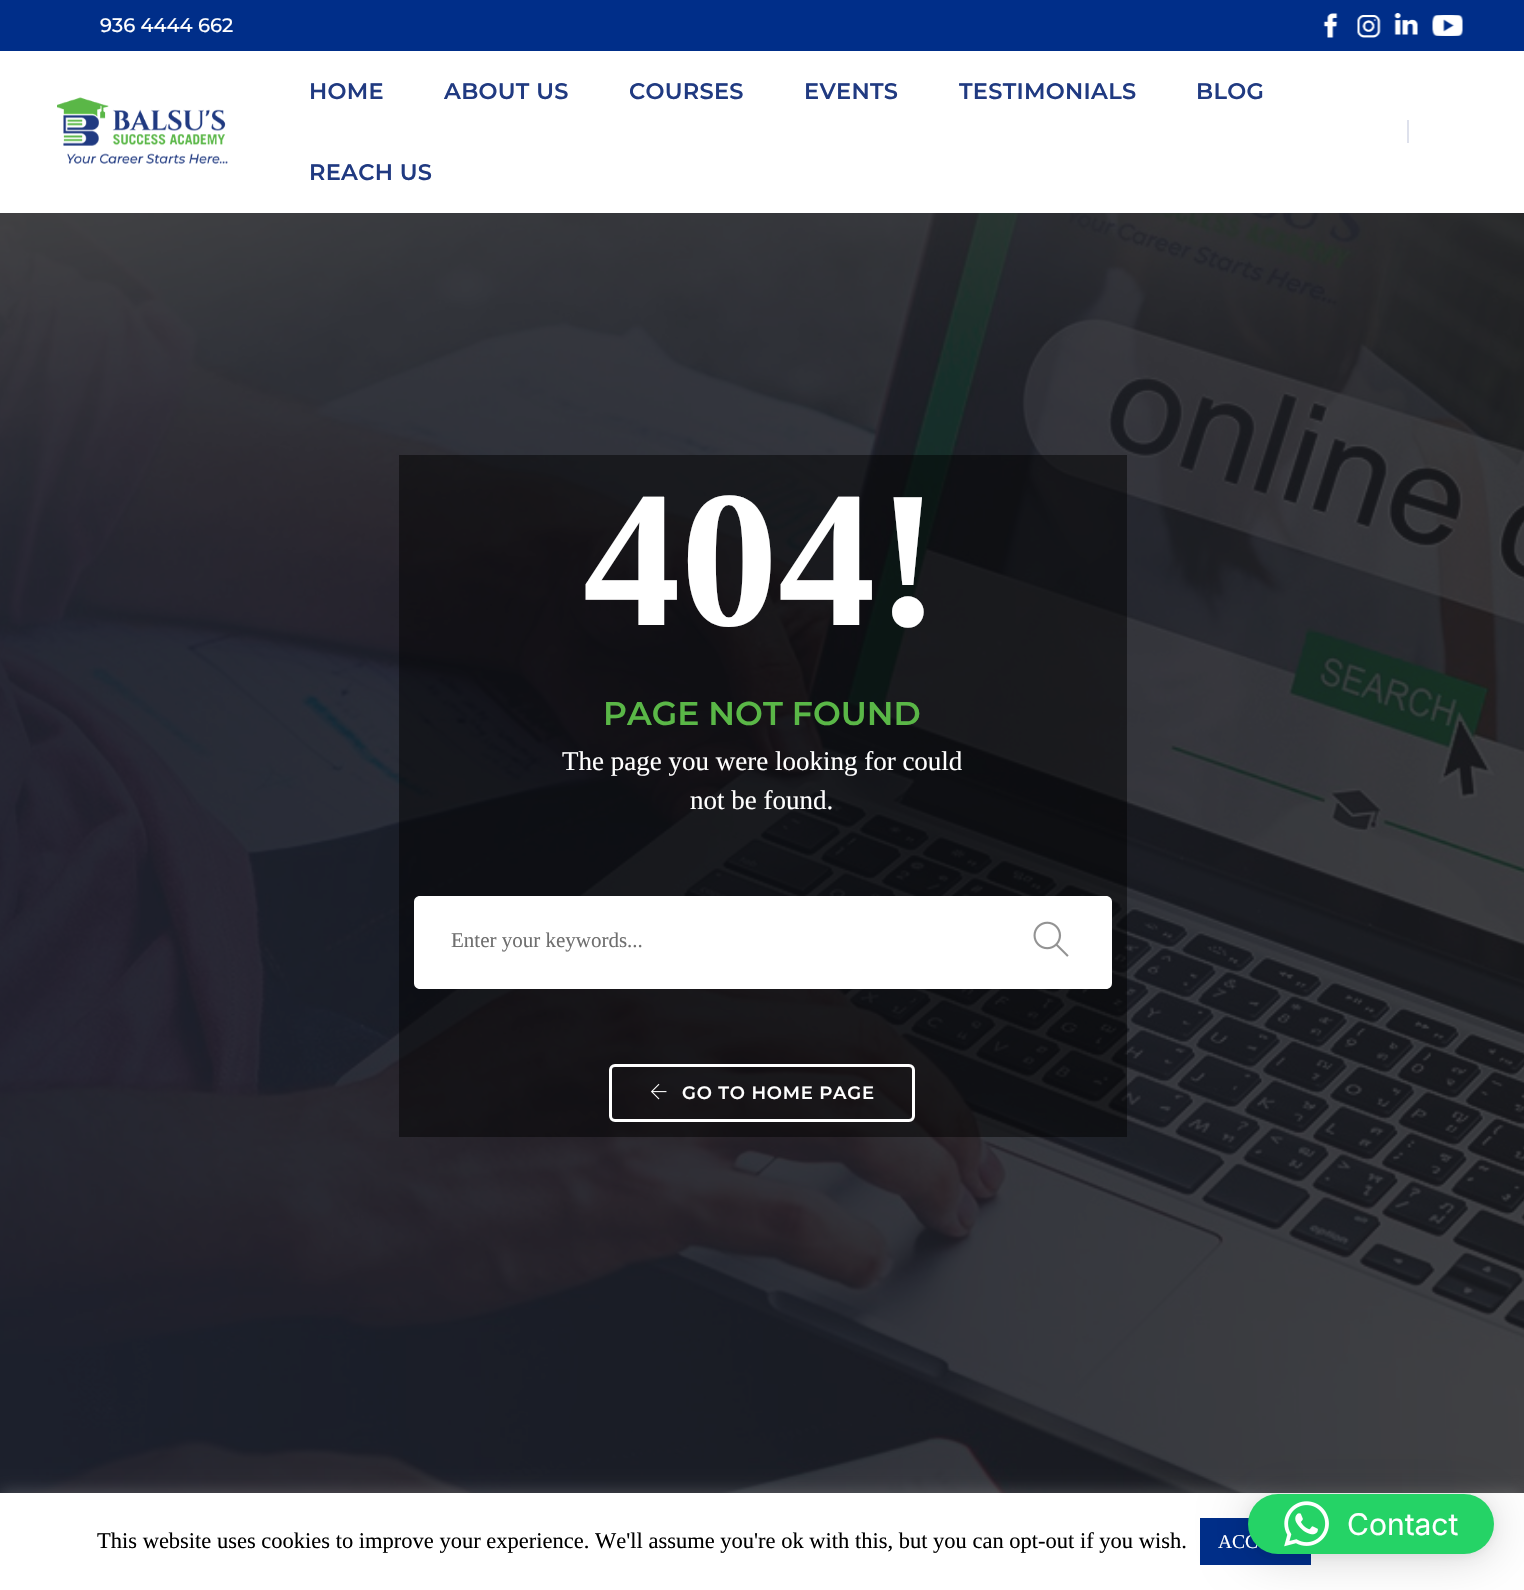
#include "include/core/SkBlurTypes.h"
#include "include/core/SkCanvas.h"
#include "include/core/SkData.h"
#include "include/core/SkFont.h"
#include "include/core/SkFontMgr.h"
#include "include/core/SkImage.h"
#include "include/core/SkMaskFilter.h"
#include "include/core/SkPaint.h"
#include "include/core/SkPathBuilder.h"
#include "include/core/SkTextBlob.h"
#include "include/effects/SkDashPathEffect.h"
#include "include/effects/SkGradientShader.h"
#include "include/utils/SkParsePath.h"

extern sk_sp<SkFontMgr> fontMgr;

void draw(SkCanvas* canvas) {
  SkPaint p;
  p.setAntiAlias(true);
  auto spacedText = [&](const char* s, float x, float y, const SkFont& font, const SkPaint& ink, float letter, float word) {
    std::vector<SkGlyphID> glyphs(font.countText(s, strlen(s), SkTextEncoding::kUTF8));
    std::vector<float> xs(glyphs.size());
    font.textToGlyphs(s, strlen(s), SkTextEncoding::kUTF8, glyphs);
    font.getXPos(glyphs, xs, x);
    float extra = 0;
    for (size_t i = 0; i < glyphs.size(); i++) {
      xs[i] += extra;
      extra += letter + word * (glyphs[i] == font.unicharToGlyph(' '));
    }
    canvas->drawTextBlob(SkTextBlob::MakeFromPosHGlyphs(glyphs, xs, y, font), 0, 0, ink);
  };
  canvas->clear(SK_ColorWHITE);
  p.setColor(SkColorSetRGB(0, 46, 137));
  canvas->drawRect(SkRect::MakeLTRB(0, 0, 1524, 51), p);
  canvas->drawImageRect(SkImages::DeferredFromEncodedData(SkData::MakeFromFileName("images/1.png")), SkRect::MakeLTRB(1323, 13, 1338, 38), SkSamplingOptions());
  canvas->drawImageRect(SkImages::DeferredFromEncodedData(SkData::MakeFromFileName("images/2.png")), SkRect::MakeLTRB(1357, 15, 1381, 38), SkSamplingOptions());
  canvas->drawImageRect(SkImages::DeferredFromEncodedData(SkData::MakeFromFileName("images/3.png")), SkRect::MakeLTRB(1394, 13, 1418, 35), SkSamplingOptions());
  canvas->drawImageRect(SkImages::DeferredFromEncodedData(SkData::MakeFromFileName("images/4.png")), SkRect::MakeLTRB(1432, 15, 1463, 36), SkSamplingOptions());
  canvas->drawImageRect(SkImages::DeferredFromEncodedData(SkData::MakeFromFileName("images/5.png")), SkRect::MakeLTRB(57, 97, 228, 164), SkSamplingOptions());
  p.setColor(SkColorSetRGB(222, 225, 236));
  canvas->drawRect(SkRect::MakeLTRB(1407, 120, 1409, 143), p);
  canvas->drawImageRect(SkImages::DeferredFromEncodedData(SkData::MakeFromFileName("images/6.png")), SkRect::MakeLTRB(0, 213, 1524, 1493), SkSamplingOptions());
  p.setColor(SkColorSetARGB(128, 0, 0, 0));
  canvas->drawRect(SkRect::MakeLTRB(399, 455, 1127, 1137), p);
  p.setColor(SK_ColorWHITE);
  canvas->drawPath(SkPathBuilder().moveTo(420, 896).lineTo(995, 896).lineTo(995, 989).lineTo(420, 989).cubicTo(416.5f, 989, 414, 986.5f, 414, 983).lineTo(414, 902).cubicTo(414, 898.5f, 416.5f, 896, 420, 896).close().detach(), p);
  canvas->drawPath(SkPathBuilder().moveTo(993, 896).lineTo(1106, 896).cubicTo(1109.5f, 896, 1112, 898.5f, 1112, 902).lineTo(1112, 983).cubicTo(1112, 986.5f, 1109.5f, 989, 1106, 989).lineTo(993, 989).close().detach(), p);
  canvas->drawImageRect(SkImages::DeferredFromEncodedData(SkData::MakeFromFileName("images/7.png")), SkRect::MakeLTRB(1033, 921, 1069, 957), SkSamplingOptions());
  p.setStyle(SkPaint::kStroke_Style);
  p.setStrokeWidth(3);
  canvas->drawRoundRect(SkRect::MakeLTRB(610.5f, 1065.5f, 913.5f, 1120.5f), 4.5f, 4.5f, p);
  canvas->drawImageRect(SkImages::DeferredFromEncodedData(SkData::MakeFromFileName("images/8.png")), SkRect::MakeLTRB(651, 1083, 667, 1100), SkSamplingOptions());
  p.setStyle(SkPaint::kFill_Style);
  p.setColor(SkColorSetARGB(77, 172, 171, 171));
  p.setMaskFilter(SkMaskFilter::MakeBlur(kNormal_SkBlurStyle, 7.5f));
  canvas->drawRect(SkRect::MakeLTRB(0, 1491, 1524, 1589), p);
  p.setMaskFilter(nullptr);
  p.setColor(SK_ColorWHITE);
  canvas->drawRect(SkRect::MakeLTRB(0, 1493, 1524, 1590), p);
  p.setColor(SkColorSetRGB(0, 46, 137));
  canvas->drawRect(SkRect::MakeLTRB(1200, 1518, 1311, 1565), p);
  p.setColor(SkColorSetARGB(41, 0, 0, 0));
  p.setMaskFilter(SkMaskFilter::MakeBlur(kNormal_SkBlurStyle, 24));
  canvas->drawRoundRect(SkRect::MakeLTRB(1248, 1497, 1494, 1557), 30, 30, p);
  p.setMaskFilter(nullptr);
  p.setColor(SkColorSetARGB(15, 0, 0, 0));
  p.setMaskFilter(SkMaskFilter::MakeBlur(kNormal_SkBlurStyle, 4.5f));
  canvas->drawRoundRect(SkRect::MakeLTRB(1248, 1496, 1494, 1556), 30, 30, p);
  p.setMaskFilter(nullptr);
  SkFont font1(fontMgr->matchFamilyStyle("Montserrat", SkFontStyle(500, SkFontStyle::kNormal_Width, SkFontStyle::kUpright_Slant)), 19.5f);
  font1.setSubpixel(true);
  p.setColor(SK_ColorWHITE);
  canvas->drawString("936 4444 662", 100, 32, font1, p);
  SkFont font2(fontMgr->matchFamilyStyle("Montserrat", SkFontStyle(600, SkFontStyle::kNormal_Width, SkFontStyle::kUpright_Slant)), 22.5f);
  font2.setSubpixel(true);
  p.setColor(SkColorSetRGB(32, 58, 129));
  spacedText("HOME", 309, 99, font2, p, 0.3f, 0);
  spacedText("ABOUT US", 444, 99, font2, p, 0.3f, 0);
  spacedText("COURSES", 629, 99, font2, p, 0.3f, 0);
  spacedText("EVENTS", 804, 99, font2, p, 0.3f, 0);
  spacedText("TESTIMONIALS", 959, 99, font2, p, 0.3f, 0);
  spacedText("BLOG", 1196, 99, font2, p, 0.3f, 0);
  spacedText("REACH US", 309, 180, font2, p, 0.3f, 0);
  SkFont font3(fontMgr->matchFamilyStyle("Liberation Serif", SkFontStyle::Bold()), 195);
  font3.setSubpixel(true);
  p.setColor(SK_ColorWHITE);
  canvas->drawString("404!", 583, 625, font3, p);
  SkFont font4(fontMgr->matchFamilyStyle("Montserrat", SkFontStyle(600, SkFontStyle::kNormal_Width, SkFontStyle::kUpright_Slant)), 33);
  font4.setSubpixel(true);
  p.setColor(SkColorSetRGB(90, 183, 71));
  canvas->drawString("PAGE NOT FOUND", 603, 725, font4, p);
  SkFont font5(fontMgr->matchFamilyStyle("Liberation Serif", SkFontStyle::Normal()), 27);
  font5.setSubpixel(true);
  p.setColor(SK_ColorWHITE);
  canvas->drawString("The page you were looking for could", 562, 770, font5, p);
  canvas->drawString("not be found.", 690, 809, font5, p);
  SkFont font6(fontMgr->matchFamilyStyle("Liberation Serif", SkFontStyle::Normal()), 21);
  font6.setSubpixel(true);
  p.setColor(SkColorSetRGB(111, 111, 111));
  canvas->drawString("Enter your keywords...", 451, 947, font6, p);
  SkFont font7(fontMgr->matchFamilyStyle("Montserrat", SkFontStyle(600, SkFontStyle::kNormal_Width, SkFontStyle::kUpright_Slant)), 18);
  font7.setSubpixel(true);
  p.setColor(SK_ColorWHITE);
  spacedText("GO TO HOME PAGE", 682, 1099, font7, p, 0.75f, 0);
  SkFont font8(fontMgr->matchFamilyStyle("Liberation Serif", SkFontStyle::Normal()), 22.5f);
  font8.setSubpixel(true);
  p.setColor(SK_ColorBLACK);
  canvas->drawString("This website uses cookies to improve your experience. We'll assume you're ok with this, but you can opt-out if you wish.", 97, 1548, font8, p);
  SkFont font9(fontMgr->matchFamilyStyle("Liberation Serif", SkFontStyle::Normal()), 19.5f);
  font9.setSubpixel(true);
  p.setColor(SK_ColorWHITE);
  canvas->drawString("ACC", 1218, 1548, font9, p);
  p.setColor(SkColorSetRGB(37, 211, 102));
  canvas->drawRoundRect(SkRect::MakeLTRB(1248, 1494, 1494, 1554), 30, 30, p);
  SkFont font10(fontMgr->matchFamilyStyle("Inter", SkFontStyle::Normal()), 30);
  font10.setSubpixel(true);
  p.setColor(SK_ColorWHITE);
  canvas->drawString("Contact", 1347, 1535, font10, p);
  canvas->drawImageRect(SkImages::DeferredFromEncodedData(SkData::MakeFromFileName("images/9.png")), SkRect::MakeLTRB(1284, 1501, 1329, 1547), SkSamplingOptions());
}
